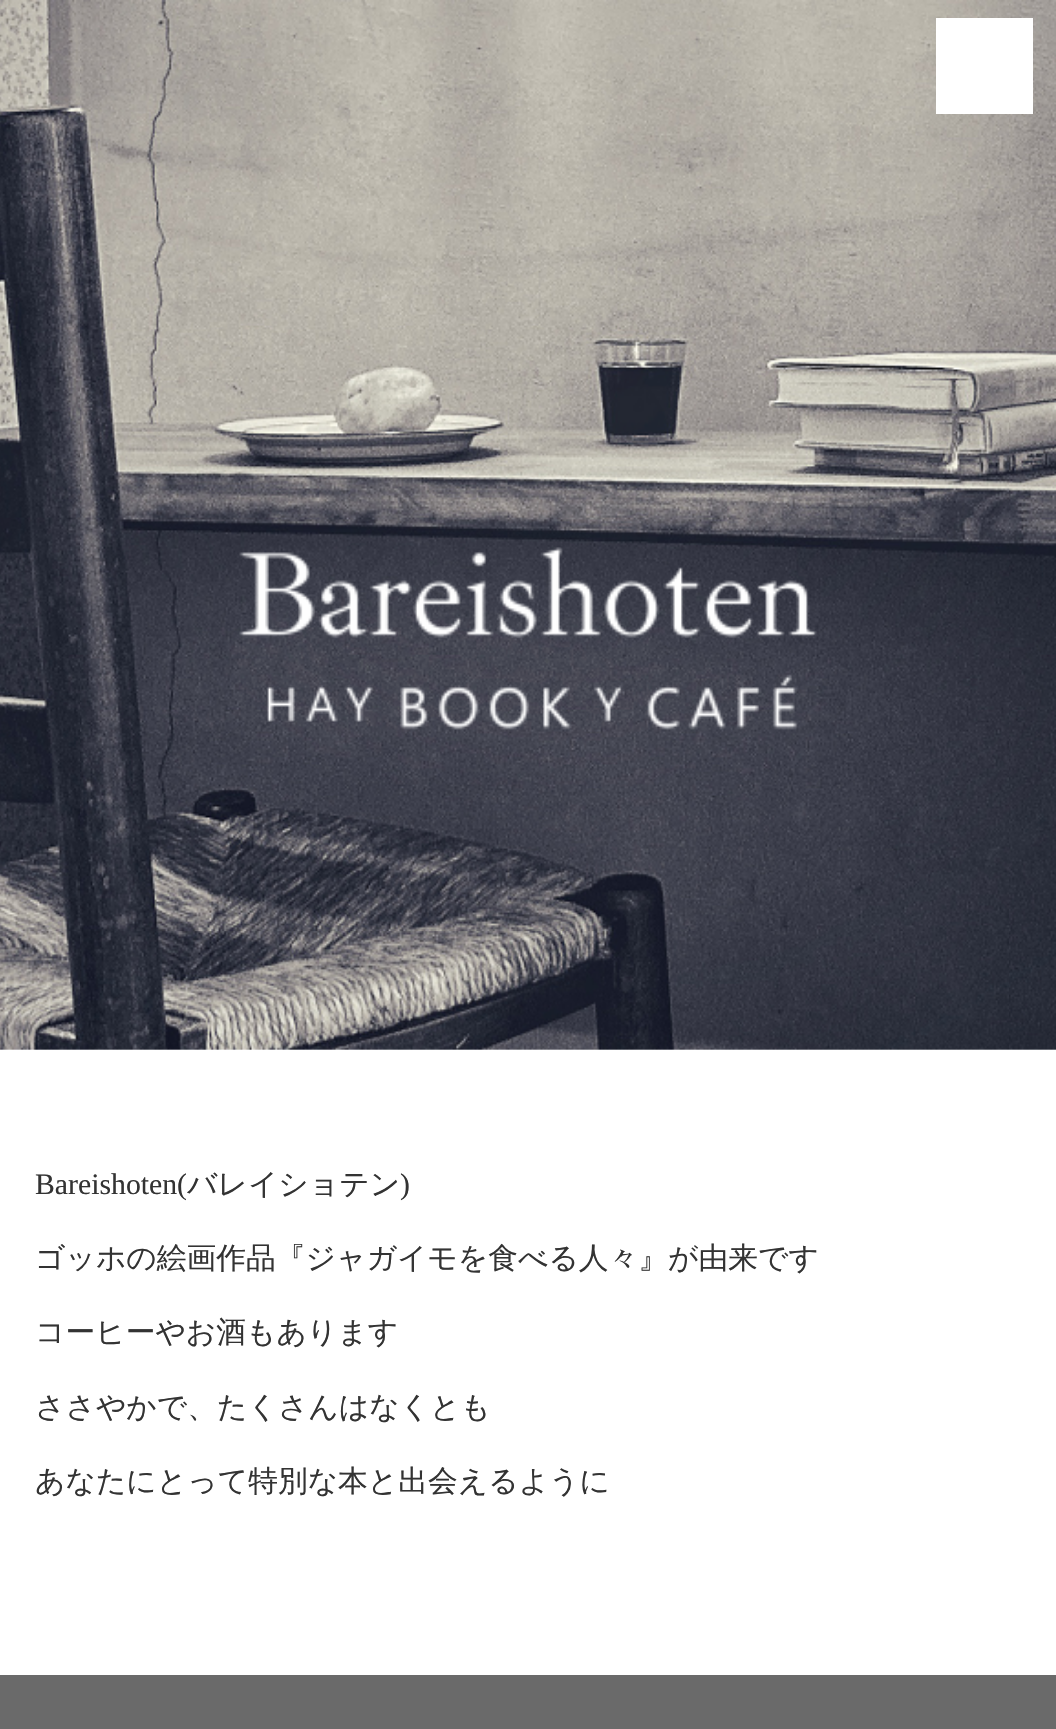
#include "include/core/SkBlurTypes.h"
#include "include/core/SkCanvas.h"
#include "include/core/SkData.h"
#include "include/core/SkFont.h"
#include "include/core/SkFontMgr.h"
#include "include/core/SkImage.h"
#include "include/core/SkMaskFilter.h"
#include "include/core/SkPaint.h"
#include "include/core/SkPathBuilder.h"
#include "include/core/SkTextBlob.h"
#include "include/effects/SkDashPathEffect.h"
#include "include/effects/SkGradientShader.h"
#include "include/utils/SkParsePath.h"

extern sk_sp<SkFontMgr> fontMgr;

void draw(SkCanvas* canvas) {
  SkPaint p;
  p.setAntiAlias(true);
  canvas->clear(SK_ColorWHITE);
  canvas->drawImageRect(SkImages::DeferredFromEncodedData(SkData::MakeFromFileName("images/1.png")), SkRect::MakeLTRB(0, 0, 1056, 1050), SkSamplingOptions());
  p.setColor(SK_ColorWHITE);
  canvas->drawRect(SkRect::MakeLTRB(936, 18, 1033, 114), p);
  canvas->drawImageRect(SkImages::DeferredFromEncodedData(SkData::MakeFromFileName("images/2.png")), SkRect::MakeLTRB(239, 547, 818, 730), SkSamplingOptions());
  p.setColor(SkColorSetRGB(106, 106, 106));
  canvas->drawRect(SkRect::MakeLTRB(0, 1675, 1056, 1729), p);
  SkFont font1(fontMgr->matchFamilyStyle("Liberation Serif", SkFontStyle::Normal()), 29.75f);
  font1.setSubpixel(true);
  p.setColor(SkColorSetRGB(51, 51, 51));
  canvas->drawString("Bareishoten(", 35, 1194, font1, p);
  SkFont font2(fontMgr->matchFamilyStyle("WenQuanYi Zen Hei", SkFontStyle(500, SkFontStyle::kNormal_Width, SkFontStyle::kUpright_Slant)), 29.75f);
  font2.setSubpixel(true);
  canvas->drawString("バレイショテン", 187, 1194, font2, p);
  canvas->drawString(")", 400, 1194, font1, p);
  canvas->drawString("ゴッホの絵画作品『ジャガイモを食べる人々』が由来です", 35, 1268, font2, p);
  canvas->drawString("コーヒーやお酒もあります", 35, 1342, font2, p);
  canvas->drawString("ささやかで、たくさんはなくとも", 35, 1417, font2, p);
  canvas->drawString("あなたにとって特別な本と出会えるように", 35, 1491, font2, p);
}
